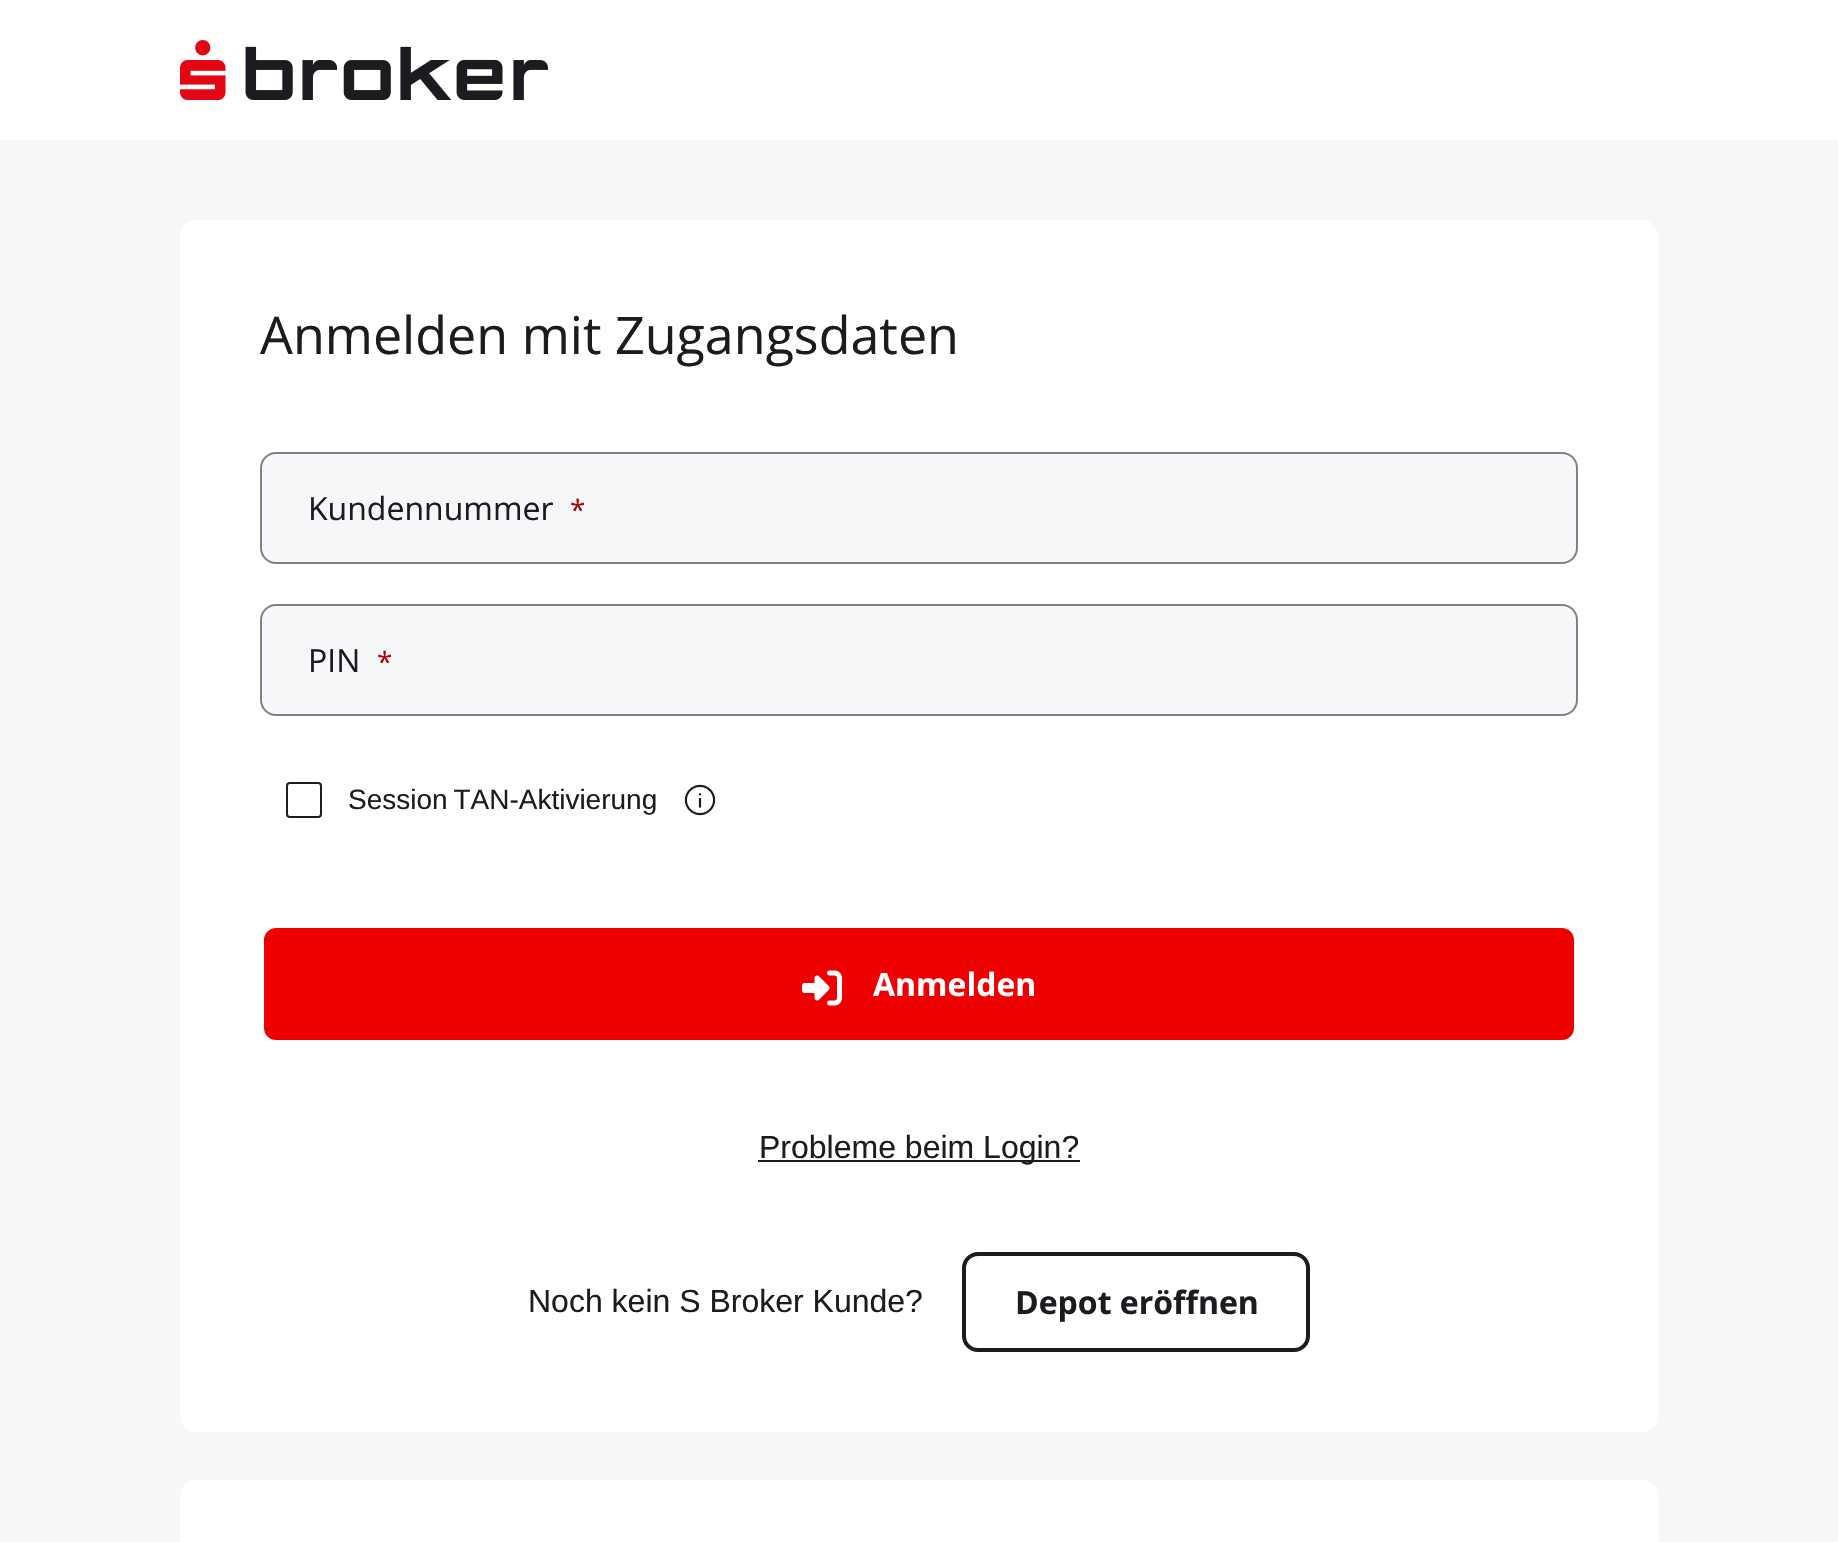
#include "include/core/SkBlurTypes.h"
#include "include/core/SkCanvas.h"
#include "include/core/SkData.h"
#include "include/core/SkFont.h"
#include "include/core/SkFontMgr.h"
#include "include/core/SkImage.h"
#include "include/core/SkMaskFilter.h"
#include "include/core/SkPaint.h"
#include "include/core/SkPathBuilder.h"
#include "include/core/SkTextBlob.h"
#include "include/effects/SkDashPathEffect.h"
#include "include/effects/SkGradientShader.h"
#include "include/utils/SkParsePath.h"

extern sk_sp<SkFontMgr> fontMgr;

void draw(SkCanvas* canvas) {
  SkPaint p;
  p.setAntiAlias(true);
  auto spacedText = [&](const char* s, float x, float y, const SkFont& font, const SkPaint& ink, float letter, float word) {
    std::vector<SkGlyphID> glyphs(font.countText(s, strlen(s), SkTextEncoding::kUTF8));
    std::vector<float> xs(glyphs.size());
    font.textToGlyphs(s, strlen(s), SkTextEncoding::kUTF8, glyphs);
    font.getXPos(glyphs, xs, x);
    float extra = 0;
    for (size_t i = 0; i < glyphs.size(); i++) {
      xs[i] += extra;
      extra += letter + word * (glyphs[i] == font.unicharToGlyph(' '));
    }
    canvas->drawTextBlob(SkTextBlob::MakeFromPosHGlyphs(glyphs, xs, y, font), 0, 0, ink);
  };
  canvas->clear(SK_ColorWHITE);
  canvas->drawImageRect(SkImages::DeferredFromEncodedData(SkData::MakeFromFileName("images/1.png")), SkRect::MakeLTRB(180, 40, 548, 100), SkSamplingOptions());
  p.setColor(SkColorSetRGB(246, 247, 249));
  canvas->drawRect(SkRect::MakeLTRB(0, 140, 1838, 1542), p);
  p.setColor(SK_ColorWHITE);
  canvas->drawRoundRect(SkRect::MakeLTRB(180, 220, 1658, 1432), 16, 16, p);
  p.setColor(SkColorSetRGB(246, 247, 249));
  canvas->drawRoundRect(SkRect::MakeLTRB(261, 453, 1577, 563), 15, 15, p);
  p.setStyle(SkPaint::kStroke_Style);
  p.setStrokeWidth(2);
  p.setColor(SkColorSetRGB(127, 127, 137));
  canvas->drawRoundRect(SkRect::MakeLTRB(261, 453, 1577, 563), 15, 15, p);
  p.setStyle(SkPaint::kFill_Style);
  p.setColor(SkColorSetRGB(246, 247, 249));
  canvas->drawRoundRect(SkRect::MakeLTRB(261, 605, 1577, 715), 15, 15, p);
  p.setStyle(SkPaint::kStroke_Style);
  p.setColor(SkColorSetRGB(127, 127, 137));
  canvas->drawRoundRect(SkRect::MakeLTRB(261, 605, 1577, 715), 15, 15, p);
  p.setColor(SkColorSetRGB(29, 27, 32));
  canvas->drawRoundRect(SkRect::MakeLTRB(287, 783, 321, 817), 3, 3, p);
  canvas->drawImageRect(SkImages::DeferredFromEncodedData(SkData::MakeFromFileName("images/2.png")), SkRect::MakeLTRB(684, 784, 716, 816), SkSamplingOptions());
  p.setStyle(SkPaint::kFill_Style);
  p.setColor(SkColorSetRGB(238, 0, 0));
  canvas->drawRoundRect(SkRect::MakeLTRB(262, 926, 1576, 1042), 14, 14, p);
  p.setStyle(SkPaint::kStroke_Style);
  p.setStrokeWidth(4);
  p.setColor(SK_ColorWHITE);
  canvas->drawRoundRect(SkRect::MakeLTRB(262, 926, 1576, 1042), 14, 14, p);
  canvas->drawImageRect(SkImages::DeferredFromEncodedData(SkData::MakeFromFileName("images/3.png")), SkRect::MakeLTRB(802, 970, 842, 1006), SkSamplingOptions());
  p.setStyle(SkPaint::kFill_Style);
  p.setColor(SkColorSetRGB(29, 27, 32));
  canvas->drawRect(SkRect::MakeLTRB(758, 1160, 1080, 1162), p);
  p.setStyle(SkPaint::kStroke_Style);
  canvas->drawRoundRect(SkRect::MakeLTRB(964, 1254, 1308, 1350), 14, 14, p);
  p.setStyle(SkPaint::kFill_Style);
  p.setColor(SK_ColorWHITE);
  canvas->drawRoundRect(SkRect::MakeLTRB(180, 1480, 1658, 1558), 16, 16, p);
  SkFont font1(fontMgr->matchFamilyStyle("Open Sans", SkFontStyle::Normal()), 52);
  font1.setSubpixel(true);
  p.setColor(SkColorSetRGB(29, 27, 32));
  canvas->drawString("Anmelden mit Zugangsdaten", 260, 354, font1, p);
  SkFont font2(fontMgr->matchFamilyStyle("Open Sans", SkFontStyle::Normal()), 32);
  font2.setSubpixel(true);
  canvas->drawString("Kundennummer", 308, 520, font2, p);
  SkFont font3(fontMgr->matchFamilyStyle("Open Sans", SkFontStyle::Normal()), 28);
  font3.setSubpixel(true);
  p.setColor(SkColorSetRGB(170, 0, 0));
  canvas->drawString("*", 570, 520, font3, p);
  p.setColor(SkColorSetRGB(29, 27, 32));
  canvas->drawString("PIN", 308, 672, font2, p);
  p.setColor(SkColorSetRGB(170, 0, 0));
  canvas->drawString("*", 377, 672, font3, p);
  SkFont font4(fontMgr->matchFamilyStyle("Liberation Sans", SkFontStyle::Normal()), 28);
  font4.setSubpixel(true);
  p.setColor(SkColorSetRGB(29, 27, 32));
  spacedText("Session TAN-Aktivierung", 348, 809, font4, p, 0, -2);
  SkFont font5(fontMgr->matchFamilyStyle("Open Sans", SkFontStyle::Bold()), 32);
  font5.setSubpixel(true);
  p.setColor(SK_ColorWHITE);
  canvas->drawString("Anmelden", 873, 996, font5, p);
  SkFont font6(fontMgr->matchFamilyStyle("Liberation Sans", SkFontStyle::Normal()), 32);
  font6.setSubpixel(true);
  p.setColor(SkColorSetRGB(29, 27, 32));
  canvas->drawString("Probleme beim Login?", 759, 1158, font6, p);
  canvas->drawString("Noch kein S Broker Kunde?", 528, 1312, font6, p);
  canvas->drawString("Depot eröffnen", 1015, 1314, font5, p);
}
